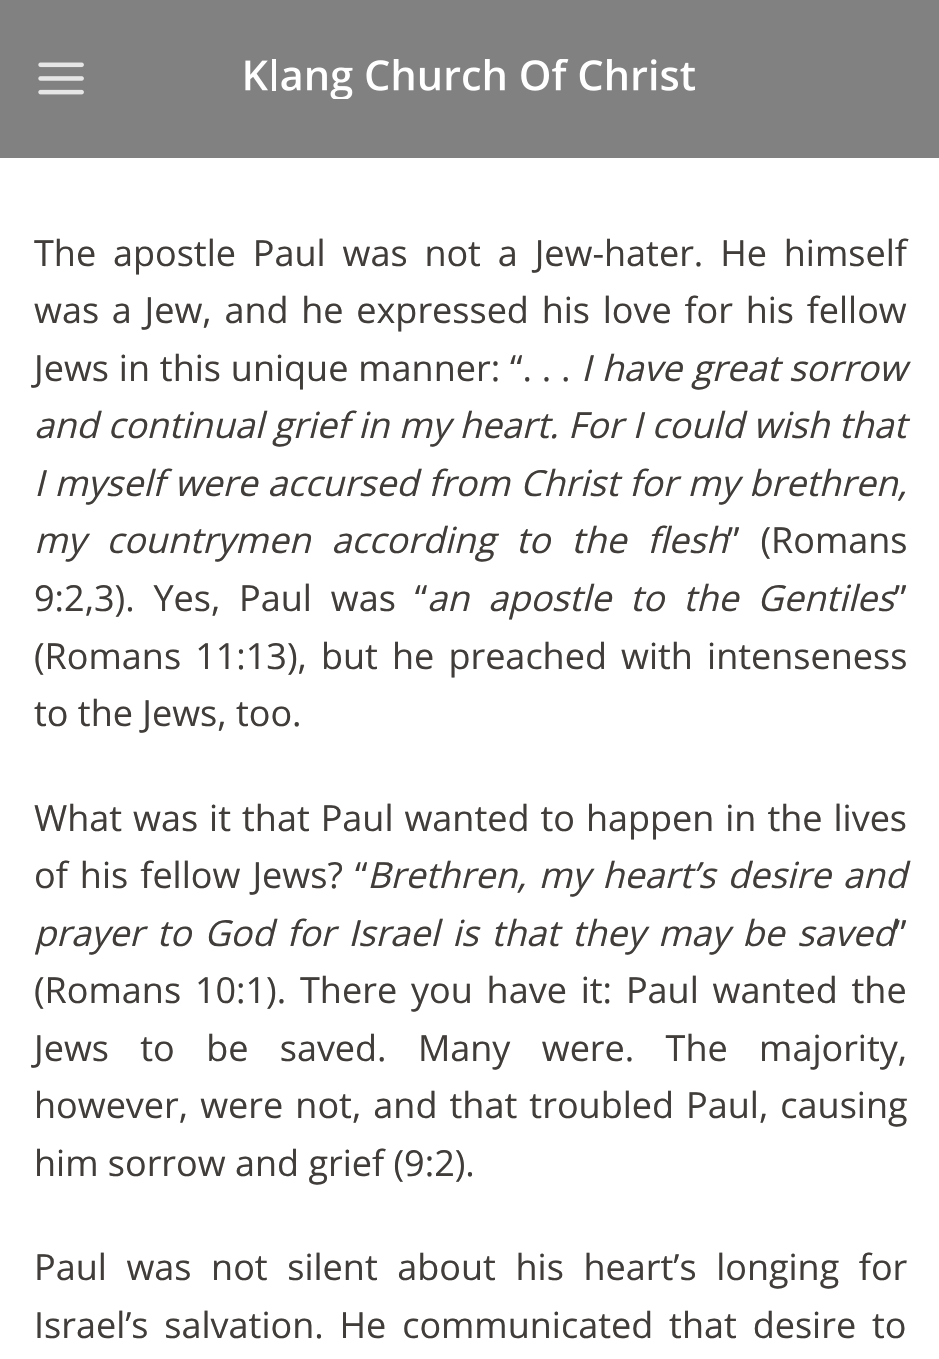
#include "include/core/SkBlurTypes.h"
#include "include/core/SkCanvas.h"
#include "include/core/SkData.h"
#include "include/core/SkFont.h"
#include "include/core/SkFontMgr.h"
#include "include/core/SkImage.h"
#include "include/core/SkMaskFilter.h"
#include "include/core/SkPaint.h"
#include "include/core/SkPathBuilder.h"
#include "include/core/SkTextBlob.h"
#include "include/effects/SkDashPathEffect.h"
#include "include/effects/SkGradientShader.h"
#include "include/utils/SkParsePath.h"

extern sk_sp<SkFontMgr> fontMgr;

void draw(SkCanvas* canvas) {
  SkPaint p;
  p.setAntiAlias(true);
  auto spacedText = [&](const char* s, float x, float y, const SkFont& font, const SkPaint& ink, float letter, float word) {
    std::vector<SkGlyphID> glyphs(font.countText(s, strlen(s), SkTextEncoding::kUTF8));
    std::vector<float> xs(glyphs.size());
    font.textToGlyphs(s, strlen(s), SkTextEncoding::kUTF8, glyphs);
    font.getXPos(glyphs, xs, x);
    float extra = 0;
    for (size_t i = 0; i < glyphs.size(); i++) {
      xs[i] += extra;
      extra += letter + word * (glyphs[i] == font.unicharToGlyph(' '));
    }
    canvas->drawTextBlob(SkTextBlob::MakeFromPosHGlyphs(glyphs, xs, y, font), 0, 0, ink);
  };
  canvas->clear(SK_ColorWHITE);
  p.setColor(SkColorSetRGB(129, 129, 129));
  canvas->drawRect(SkRect::MakeLTRB(0, 0, 939, 158), p);
  canvas->drawImageRect(SkImages::DeferredFromEncodedData(SkData::MakeFromFileName("images/1.png")), SkRect::MakeLTRB(38, 62, 84, 95), SkSamplingOptions());
  canvas->drawImageRect(SkImages::DeferredFromEncodedData(SkData::MakeFromFileName("images/2.png")), SkRect::MakeLTRB(245, 59, 695, 99), SkSamplingOptions());
  SkFont font1(fontMgr->matchFamilyStyle("Open Sans", SkFontStyle::Normal()), 36);
  font1.setSubpixel(true);
  p.setColor(SkColorSetRGB(64, 61, 58));
  spacedText("The apostle Paul was not a Jew-hater. He himself", 34, 266, font1, p, 0, 7.5f);
  spacedText("was a Jew, and he expressed his love for his fellow", 34, 323, font1, p, 0, 3.4f);
  spacedText("Jews in this unique manner: “. . .", 34, 381, font1, p, 0, 0.5f);
  SkFont font2(fontMgr->matchFamilyStyle("Open Sans", SkFontStyle::Italic()), 36);
  font2.setSubpixel(true);
  spacedText("I have", 581, 381, font2, p, 0, 1);
  canvas->drawString("great sorrow", 692, 381, font2, p);
  canvas->drawString("and continual grief in my heart. For I could wish that", 34, 438, font2, p);
  spacedText("I myself were accursed from Christ for my brethren,", 34, 496, font2, p, 0, 0.75f);
  spacedText("my countrymen according to the flesh", 34, 553, font2, p, 0, 11.5f);
  spacedText("” (Romans", 727, 553, font1, p, 0, 11.5f);
  spacedText("9:2,3). Yes, Paul was “", 34, 611, font1, p, 0, 9.5f);
  spacedText("an apostle to the Gentiles", 427, 611, font2, p, 0, 9.5f);
  canvas->drawString("”", 894, 611, font1, p);
  spacedText("(Romans 11:13), but he preached with intenseness", 34, 669, font1, p, 0, 4.75f);
  canvas->drawString("to the Jews, too.", 34, 726, font1, p);
  spacedText("What was it that Paul wanted to happen in the lives", 34, 831, font1, p, 0, 1.6f);
  spacedText("of his fellow Jews? “", 34, 888, font1, p, 0, 2.75f);
  spacedText("Brethren, my heart’s desire and", 367, 888, font2, p, 0, 2.75f);
  spacedText("prayer to God for Israel is that they may be saved", 34, 946, font2, p, 0, 3.5f);
  canvas->drawString("”", 894, 946, font1, p);
  spacedText("(Romans 10:1). There you have it: Paul wanted the", 34, 1003, font1, p, 0, 4.5f);
  spacedText("Jews to be saved. Many were. The majority,", 34, 1061, font1, p, 0, 22);
  spacedText("however, were not, and that troubled Paul, causing", 34, 1118, font1, p, 0, 2.75f);
  canvas->drawString("him sorrow and grief (9:2).", 34, 1176, font1, p);
  spacedText("Paul was not silent about his heart’s longing for", 34, 1280, font1, p, 0, 10.25f);
  spacedText("Israel’s salvation. He communicated that desire to", 34, 1338, font1, p, 0, 6.5f);
}
